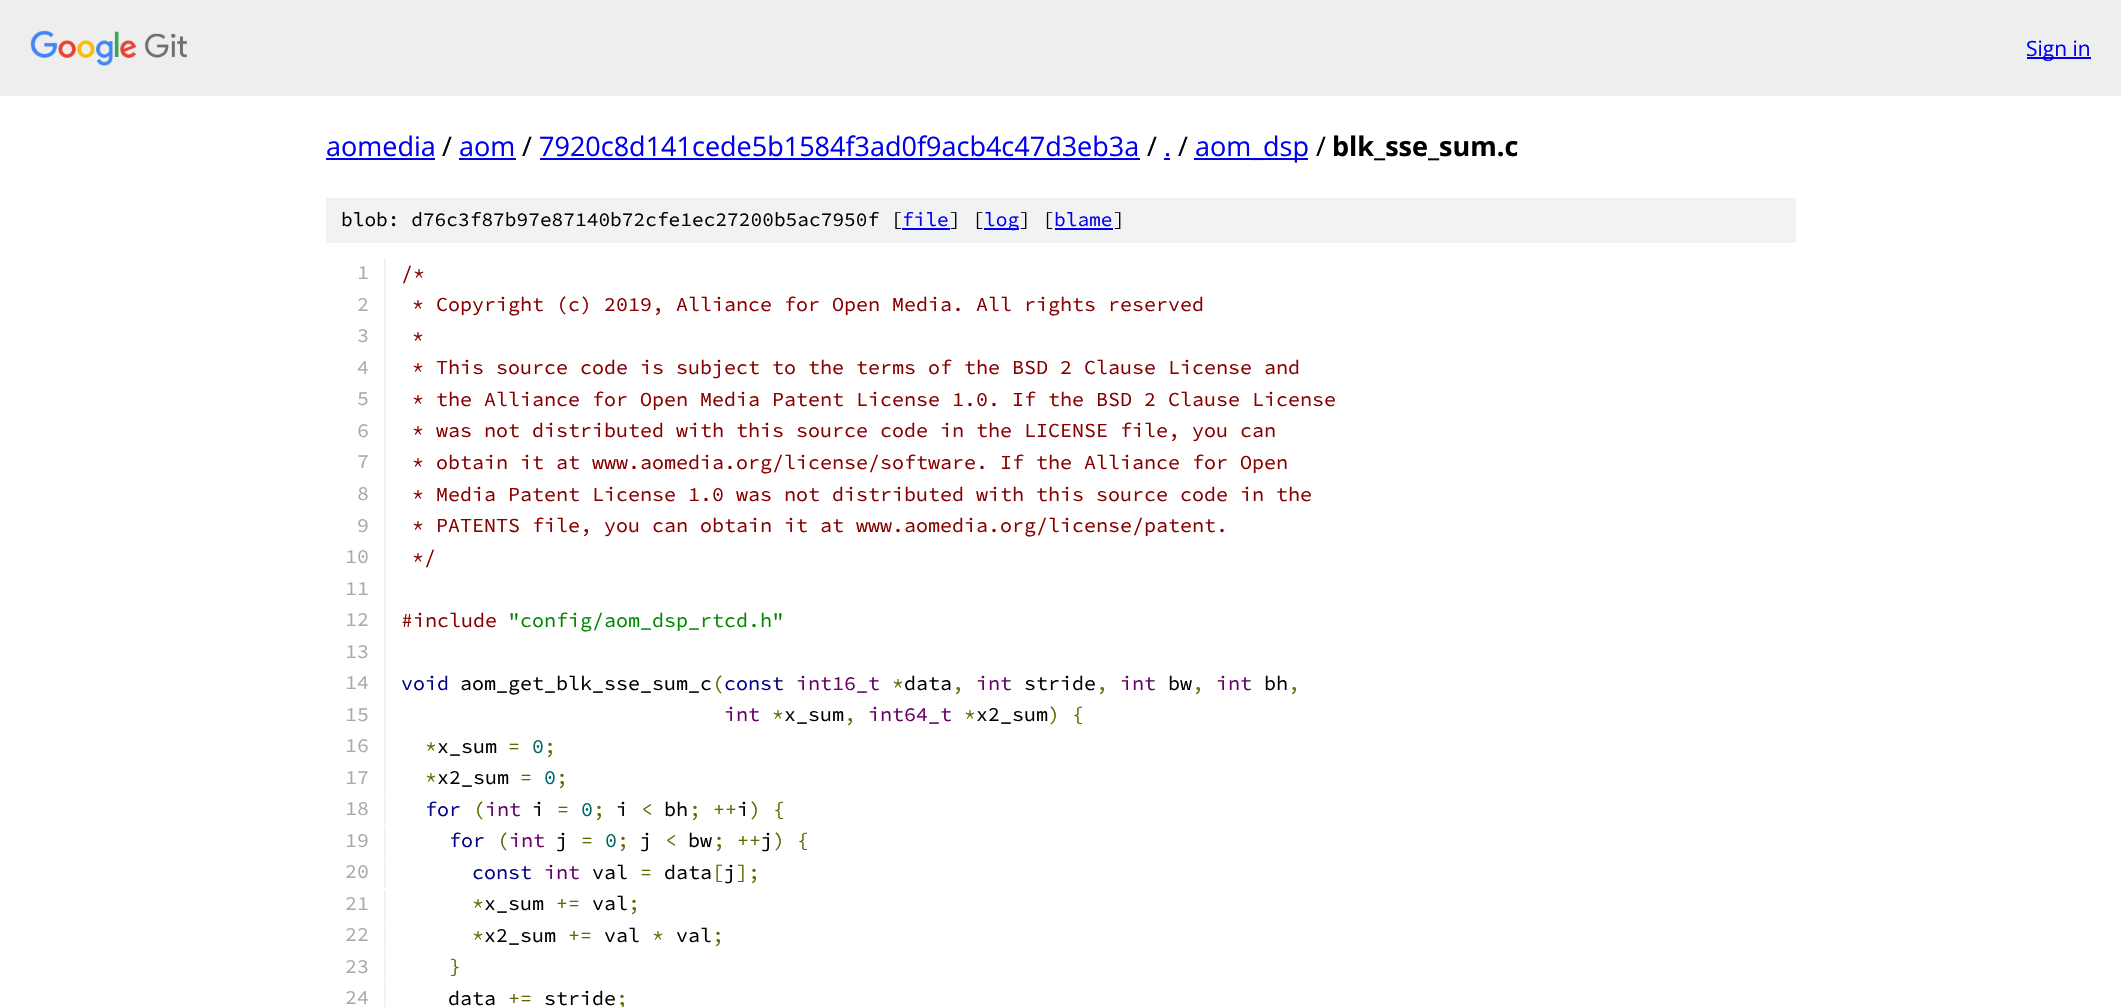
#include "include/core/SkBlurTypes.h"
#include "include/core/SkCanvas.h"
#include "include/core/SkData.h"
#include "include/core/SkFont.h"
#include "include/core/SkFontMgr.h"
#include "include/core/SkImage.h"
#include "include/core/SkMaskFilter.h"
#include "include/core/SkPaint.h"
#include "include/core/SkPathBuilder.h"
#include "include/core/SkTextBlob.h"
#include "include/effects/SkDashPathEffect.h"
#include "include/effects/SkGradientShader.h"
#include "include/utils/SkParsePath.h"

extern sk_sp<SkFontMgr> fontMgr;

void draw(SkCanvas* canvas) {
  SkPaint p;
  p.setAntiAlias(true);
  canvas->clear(SK_ColorWHITE);
  p.setColor(SkColorSetRGB(238, 238, 238));
  canvas->drawRect(SkRect::MakeLTRB(0, 0, 2121, 96), p);
  canvas->drawImageRect(SkImages::DeferredFromEncodedData(SkData::MakeFromFileName("images/1.png")), SkRect::MakeLTRB(30, 30, 187, 66), SkSamplingOptions());
  p.setColor(SkColorSetRGB(0, 0, 238));
  canvas->drawRect(SkRect::MakeLTRB(2027, 57, 2091, 59), p);
  canvas->drawRect(SkRect::MakeLTRB(326, 158, 435, 160), p);
  canvas->drawRect(SkRect::MakeLTRB(459, 158, 516, 160), p);
  canvas->drawRect(SkRect::MakeLTRB(540, 158, 1140, 160), p);
  canvas->drawRect(SkRect::MakeLTRB(1164, 158, 1170, 160), p);
  canvas->drawRect(SkRect::MakeLTRB(1194, 158, 1308, 160), p);
  p.setColor(SkColorSetRGB(241, 242, 243));
  canvas->drawRect(SkRect::MakeLTRB(326, 198, 1796, 243), p);
  p.setColor(SkColorSetRGB(0, 0, 238));
  canvas->drawRect(SkRect::MakeLTRB(902, 228, 950, 230), p);
  canvas->drawRect(SkRect::MakeLTRB(984, 228, 1019, 230), p);
  canvas->drawRect(SkRect::MakeLTRB(1055, 228, 1113, 230), p);
  p.setColor(SkColorSetRGB(241, 242, 243));
  canvas->drawRect(SkRect::MakeLTRB(384, 258, 386, 794), p);
  canvas->drawRect(SkRect::MakeLTRB(384, 795, 386, 825), p);
  canvas->drawRect(SkRect::MakeLTRB(384, 827, 386, 857), p);
  canvas->drawRect(SkRect::MakeLTRB(384, 858, 386, 888), p);
  canvas->drawRect(SkRect::MakeLTRB(384, 890, 386, 920), p);
  canvas->drawRect(SkRect::MakeLTRB(384, 921, 386, 951), p);
  canvas->drawRect(SkRect::MakeLTRB(384, 953, 386, 983), p);
  canvas->drawRect(SkRect::MakeLTRB(384, 984, 386, 1007), p);
  SkFont font1(fontMgr->matchFamilyStyle("Open Sans", SkFontStyle::Normal()), 21);
  font1.setSubpixel(true);
  p.setColor(SkColorSetRGB(0, 0, 238));
  canvas->drawString("Sign in", 2026, 56, font1, p);
  SkFont font2(fontMgr->matchFamilyStyle("Open Sans", SkFontStyle::Normal()), 27);
  font2.setSubpixel(true);
  canvas->drawString("aomedia", 326, 156, font2, p);
  p.setColor(SK_ColorBLACK);
  canvas->drawString("/", 442, 156, font2, p);
  p.setColor(SkColorSetRGB(0, 0, 238));
  canvas->drawString("aom", 459, 156, font2, p);
  p.setColor(SK_ColorBLACK);
  canvas->drawString("/", 522, 156, font2, p);
  p.setColor(SkColorSetRGB(0, 0, 238));
  canvas->drawString("7920c8d141cede5b1584f3ad0f9acb4c47d3eb3a", 539, 156, font2, p);
  p.setColor(SK_ColorBLACK);
  canvas->drawString("/", 1147, 156, font2, p);
  p.setColor(SkColorSetRGB(0, 0, 238));
  canvas->drawString(".", 1164, 156, font2, p);
  p.setColor(SK_ColorBLACK);
  canvas->drawString("/", 1178, 156, font2, p);
  p.setColor(SkColorSetRGB(0, 0, 238));
  canvas->drawString("aom_dsp", 1195, 156, font2, p);
  p.setColor(SK_ColorBLACK);
  canvas->drawString("/", 1316, 156, font2, p);
  SkFont font3(fontMgr->matchFamilyStyle("Open Sans", SkFontStyle::Bold()), 27);
  font3.setSubpixel(true);
  canvas->drawString("blk_sse_sum.c", 1332, 156, font3, p);
  SkFont font4(fontMgr->matchFamilyStyle("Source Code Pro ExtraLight", SkFontStyle(200, SkFontStyle::kNormal_Width, SkFontStyle::kUpright_Slant)), 19.5f);
  font4.setSubpixel(true);
  canvas->drawString("blob: d76c3f87b97e87140b72cfe1ec27200b5ac7950f [", 341, 226, font4, p);
  p.setColor(SkColorSetRGB(0, 0, 238));
  canvas->drawString("file", 902, 226, font4, p);
  p.setColor(SK_ColorBLACK);
  canvas->drawString("] [", 949, 226, font4, p);
  p.setColor(SkColorSetRGB(0, 0, 238));
  canvas->drawString("log", 984, 226, font4, p);
  p.setColor(SK_ColorBLACK);
  canvas->drawString("] [", 1019, 226, font4, p);
  p.setColor(SkColorSetRGB(0, 0, 238));
  canvas->drawString("blame", 1054, 226, font4, p);
  p.setColor(SK_ColorBLACK);
  canvas->drawString("]", 1113, 226, font4, p);
  SkFont font5(fontMgr->matchFamilyStyle("Source Code Pro ExtraLight", SkFontStyle(200, SkFontStyle::kNormal_Width, SkFontStyle::kUpright_Slant)), 20);
  font5.setSubpixel(true);
  p.setColor(SkColorSetRGB(170, 170, 170));
  canvas->drawString("1", 357, 279, font5, p);
  p.setColor(SkColorSetRGB(136, 0, 0));
  canvas->drawString("/*", 401, 280, font5, p);
  p.setColor(SkColorSetRGB(170, 170, 170));
  canvas->drawString("2", 357, 311, font5, p);
  p.setColor(SkColorSetRGB(136, 0, 0));
  canvas->drawString("* Copyright (c) 2019, Alliance for Open Media. All rights reserved", 412, 311, font5, p);
  p.setColor(SkColorSetRGB(170, 170, 170));
  canvas->drawString("3", 357, 342, font5, p);
  p.setColor(SkColorSetRGB(136, 0, 0));
  canvas->drawString("*", 412, 343, font5, p);
  p.setColor(SkColorSetRGB(170, 170, 170));
  canvas->drawString("4", 357, 374, font5, p);
  p.setColor(SkColorSetRGB(136, 0, 0));
  canvas->drawString("* This source code is subject to the terms of the BSD 2 Clause License and", 412, 374, font5, p);
  p.setColor(SkColorSetRGB(170, 170, 170));
  canvas->drawString("5", 357, 405, font5, p);
  p.setColor(SkColorSetRGB(136, 0, 0));
  canvas->drawString("* the Alliance for Open Media Patent License 1.0. If the BSD 2 Clause License", 412, 406, font5, p);
  p.setColor(SkColorSetRGB(170, 170, 170));
  canvas->drawString("6", 357, 437, font5, p);
  p.setColor(SkColorSetRGB(136, 0, 0));
  canvas->drawString("* was not distributed with this source code in the LICENSE file, you can", 412, 437, font5, p);
  p.setColor(SkColorSetRGB(170, 170, 170));
  canvas->drawString("7", 357, 468, font5, p);
  p.setColor(SkColorSetRGB(136, 0, 0));
  canvas->drawString("* obtain it at www.aomedia.org/license/software. If the Alliance for Open", 412, 469, font5, p);
  p.setColor(SkColorSetRGB(170, 170, 170));
  canvas->drawString("8", 357, 500, font5, p);
  p.setColor(SkColorSetRGB(136, 0, 0));
  canvas->drawString("* Media Patent License 1.0 was not distributed with this source code in the", 412, 501, font5, p);
  p.setColor(SkColorSetRGB(170, 170, 170));
  canvas->drawString("9", 357, 532, font5, p);
  p.setColor(SkColorSetRGB(136, 0, 0));
  canvas->drawString("* PATENTS file, you can obtain it at www.aomedia.org/license/patent.", 412, 532, font5, p);
  p.setColor(SkColorSetRGB(170, 170, 170));
  canvas->drawString("10", 345, 563, font5, p);
  p.setColor(SkColorSetRGB(136, 0, 0));
  canvas->drawString("*/", 412, 564, font5, p);
  p.setColor(SkColorSetRGB(170, 170, 170));
  canvas->drawString("11", 345, 595, font5, p);
  canvas->drawString("12", 345, 626, font5, p);
  p.setColor(SkColorSetRGB(136, 0, 0));
  canvas->drawString("#include", 401, 627, font5, p);
  p.setColor(SkColorSetRGB(0, 136, 0));
  canvas->drawString("\"config/aom_dsp_rtcd.h\"", 508, 627, font5, p);
  p.setColor(SkColorSetRGB(170, 170, 170));
  canvas->drawString("13", 345, 658, font5, p);
  canvas->drawString("14", 345, 689, font5, p);
  p.setColor(SkColorSetRGB(0, 0, 136));
  canvas->drawString("void", 401, 690, font5, p);
  p.setColor(SK_ColorBLACK);
  canvas->drawString("aom_get_blk_sse_sum_c", 460, 690, font5, p);
  p.setColor(SkColorSetRGB(102, 102, 0));
  canvas->drawString("(", 712, 690, font5, p);
  p.setColor(SkColorSetRGB(0, 0, 136));
  canvas->drawString("const", 724, 690, font5, p);
  p.setColor(SkColorSetRGB(102, 0, 102));
  canvas->drawString("int16_t", 796, 690, font5, p);
  p.setColor(SkColorSetRGB(102, 102, 0));
  canvas->drawString("*", 892, 690, font5, p);
  p.setColor(SK_ColorBLACK);
  canvas->drawString("data", 904, 690, font5, p);
  p.setColor(SkColorSetRGB(102, 0, 102));
  canvas->drawString("int", 976, 690, font5, p);
  p.setColor(SK_ColorBLACK);
  canvas->drawString("stride", 1024, 690, font5, p);
  p.setColor(SkColorSetRGB(102, 0, 102));
  canvas->drawString("int", 1120, 690, font5, p);
  p.setColor(SK_ColorBLACK);
  canvas->drawString("bw", 1168, 690, font5, p);
  p.setColor(SkColorSetRGB(102, 0, 102));
  canvas->drawString("int", 1216, 690, font5, p);
  p.setColor(SK_ColorBLACK);
  canvas->drawString("bh", 1264, 690, font5, p);
  p.setColor(SkColorSetRGB(102, 102, 0));
  canvas->drawString(",", 952, 690, font5, p);
  canvas->drawString(",", 1096, 690, font5, p);
  canvas->drawString(",", 1192, 690, font5, p);
  canvas->drawString(",", 1288, 690, font5, p);
  p.setColor(SkColorSetRGB(170, 170, 170));
  canvas->drawString("15", 345, 721, font5, p);
  p.setColor(SkColorSetRGB(102, 0, 102));
  canvas->drawString("int", 724, 721, font5, p);
  p.setColor(SkColorSetRGB(102, 102, 0));
  canvas->drawString("*", 772, 721, font5, p);
  p.setColor(SK_ColorBLACK);
  canvas->drawString("x_sum", 784, 721, font5, p);
  p.setColor(SkColorSetRGB(102, 102, 0));
  canvas->drawString(",", 844, 721, font5, p);
  p.setColor(SkColorSetRGB(102, 0, 102));
  canvas->drawString("int64_t", 868, 721, font5, p);
  p.setColor(SkColorSetRGB(102, 102, 0));
  canvas->drawString("*", 964, 721, font5, p);
  p.setColor(SK_ColorBLACK);
  canvas->drawString("x2_sum", 976, 721, font5, p);
  p.setColor(SkColorSetRGB(102, 102, 0));
  canvas->drawString(") {", 1048, 721, font5, p);
  p.setColor(SkColorSetRGB(170, 170, 170));
  canvas->drawString("16", 345, 752, font5, p);
  p.setColor(SkColorSetRGB(102, 102, 0));
  canvas->drawString("*", 425, 753, font5, p);
  p.setColor(SK_ColorBLACK);
  canvas->drawString("x_sum", 437, 753, font5, p);
  p.setColor(SkColorSetRGB(102, 102, 0));
  canvas->drawString("=", 508, 753, font5, p);
  p.setColor(SkColorSetRGB(0, 102, 102));
  canvas->drawString("0", 532, 753, font5, p);
  p.setColor(SkColorSetRGB(102, 102, 0));
  canvas->drawString(";", 544, 753, font5, p);
  p.setColor(SkColorSetRGB(170, 170, 170));
  canvas->drawString("17", 345, 784, font5, p);
  p.setColor(SkColorSetRGB(102, 102, 0));
  canvas->drawString("*", 425, 784, font5, p);
  p.setColor(SK_ColorBLACK);
  canvas->drawString("x2_sum", 437, 784, font5, p);
  p.setColor(SkColorSetRGB(102, 102, 0));
  canvas->drawString("=", 520, 784, font5, p);
  p.setColor(SkColorSetRGB(0, 102, 102));
  canvas->drawString("0", 544, 784, font5, p);
  p.setColor(SkColorSetRGB(102, 102, 0));
  canvas->drawString(";", 556, 784, font5, p);
  p.setColor(SkColorSetRGB(170, 170, 170));
  canvas->drawString("18", 345, 815, font5, p);
  p.setColor(SkColorSetRGB(0, 0, 136));
  canvas->drawString("for", 425, 816, font5, p);
  p.setColor(SkColorSetRGB(102, 102, 0));
  canvas->drawString("(", 473, 816, font5, p);
  p.setColor(SkColorSetRGB(102, 0, 102));
  canvas->drawString("int", 485, 816, font5, p);
  p.setColor(SK_ColorBLACK);
  canvas->drawString("i", 532, 816, font5, p);
  canvas->drawString("i", 616, 816, font5, p);
  canvas->drawString("bh", 664, 816, font5, p);
  p.setColor(SkColorSetRGB(102, 102, 0));
  canvas->drawString("; ++ ) {", 689, 816, font5, p);
  canvas->drawString("=", 557, 816, font5, p);
  p.setColor(SkColorSetRGB(0, 102, 102));
  canvas->drawString("0", 581, 816, font5, p);
  p.setColor(SkColorSetRGB(102, 102, 0));
  canvas->drawString(";", 593, 816, font5, p);
  canvas->drawString("<", 641, 816, font5, p);
  p.setColor(SK_ColorBLACK);
  canvas->drawString("i", 737, 816, font5, p);
  p.setColor(SkColorSetRGB(170, 170, 170));
  canvas->drawString("19", 345, 847, font5, p);
  p.setColor(SkColorSetRGB(0, 0, 136));
  canvas->drawString("for", 449, 847, font5, p);
  p.setColor(SkColorSetRGB(102, 102, 0));
  canvas->drawString("(", 497, 847, font5, p);
  p.setColor(SkColorSetRGB(102, 0, 102));
  canvas->drawString("int", 509, 847, font5, p);
  p.setColor(SK_ColorBLACK);
  canvas->drawString("j", 556, 847, font5, p);
  canvas->drawString("j", 640, 847, font5, p);
  canvas->drawString("bw", 688, 847, font5, p);
  p.setColor(SkColorSetRGB(102, 102, 0));
  canvas->drawString("; ++ ) {", 713, 847, font5, p);
  canvas->drawString("=", 581, 847, font5, p);
  p.setColor(SkColorSetRGB(0, 102, 102));
  canvas->drawString("0", 605, 847, font5, p);
  p.setColor(SkColorSetRGB(102, 102, 0));
  canvas->drawString(";", 617, 847, font5, p);
  canvas->drawString("<", 665, 847, font5, p);
  p.setColor(SK_ColorBLACK);
  canvas->drawString("j", 761, 847, font5, p);
  p.setColor(SkColorSetRGB(170, 170, 170));
  canvas->drawString("20", 345, 878, font5, p);
  p.setColor(SkColorSetRGB(0, 0, 136));
  canvas->drawString("const", 472, 879, font5, p);
  p.setColor(SkColorSetRGB(102, 0, 102));
  canvas->drawString("int", 544, 879, font5, p);
  p.setColor(SK_ColorBLACK);
  canvas->drawString("val", 592, 879, font5, p);
  p.setColor(SkColorSetRGB(102, 102, 0));
  canvas->drawString("=", 640, 879, font5, p);
  p.setColor(SK_ColorBLACK);
  canvas->drawString("data j", 664, 879, font5, p);
  p.setColor(SkColorSetRGB(102, 102, 0));
  canvas->drawString("[ ];", 712, 879, font5, p);
  p.setColor(SkColorSetRGB(170, 170, 170));
  canvas->drawString("21", 345, 910, font5, p);
  p.setColor(SkColorSetRGB(102, 102, 0));
  canvas->drawString("*", 472, 910, font5, p);
  p.setColor(SK_ColorBLACK);
  canvas->drawString("x_sum", 484, 910, font5, p);
  p.setColor(SkColorSetRGB(102, 102, 0));
  canvas->drawString("+=", 556, 910, font5, p);
  p.setColor(SK_ColorBLACK);
  canvas->drawString("val", 592, 910, font5, p);
  p.setColor(SkColorSetRGB(102, 102, 0));
  canvas->drawString(";", 628, 910, font5, p);
  p.setColor(SkColorSetRGB(170, 170, 170));
  canvas->drawString("22", 345, 941, font5, p);
  p.setColor(SkColorSetRGB(102, 102, 0));
  canvas->drawString("*", 472, 942, font5, p);
  p.setColor(SK_ColorBLACK);
  canvas->drawString("x2_sum", 484, 942, font5, p);
  p.setColor(SkColorSetRGB(102, 102, 0));
  canvas->drawString("+=", 568, 942, font5, p);
  p.setColor(SK_ColorBLACK);
  canvas->drawString("val", 604, 942, font5, p);
  p.setColor(SkColorSetRGB(102, 102, 0));
  canvas->drawString("*", 652, 942, font5, p);
  p.setColor(SK_ColorBLACK);
  canvas->drawString("val", 676, 942, font5, p);
  p.setColor(SkColorSetRGB(102, 102, 0));
  canvas->drawString(";", 712, 942, font5, p);
  p.setColor(SkColorSetRGB(170, 170, 170));
  canvas->drawString("23", 345, 973, font5, p);
  p.setColor(SkColorSetRGB(102, 102, 0));
  canvas->drawString("}", 449, 973, font5, p);
  p.setColor(SkColorSetRGB(170, 170, 170));
  canvas->drawString("24", 345, 1004, font5, p);
  p.setColor(SK_ColorBLACK);
  canvas->drawString("data", 448, 1005, font5, p);
  p.setColor(SkColorSetRGB(102, 102, 0));
  canvas->drawString("+=", 508, 1005, font5, p);
  p.setColor(SK_ColorBLACK);
  canvas->drawString("stride", 544, 1005, font5, p);
  p.setColor(SkColorSetRGB(102, 102, 0));
  canvas->drawString(";", 616, 1005, font5, p);
}
